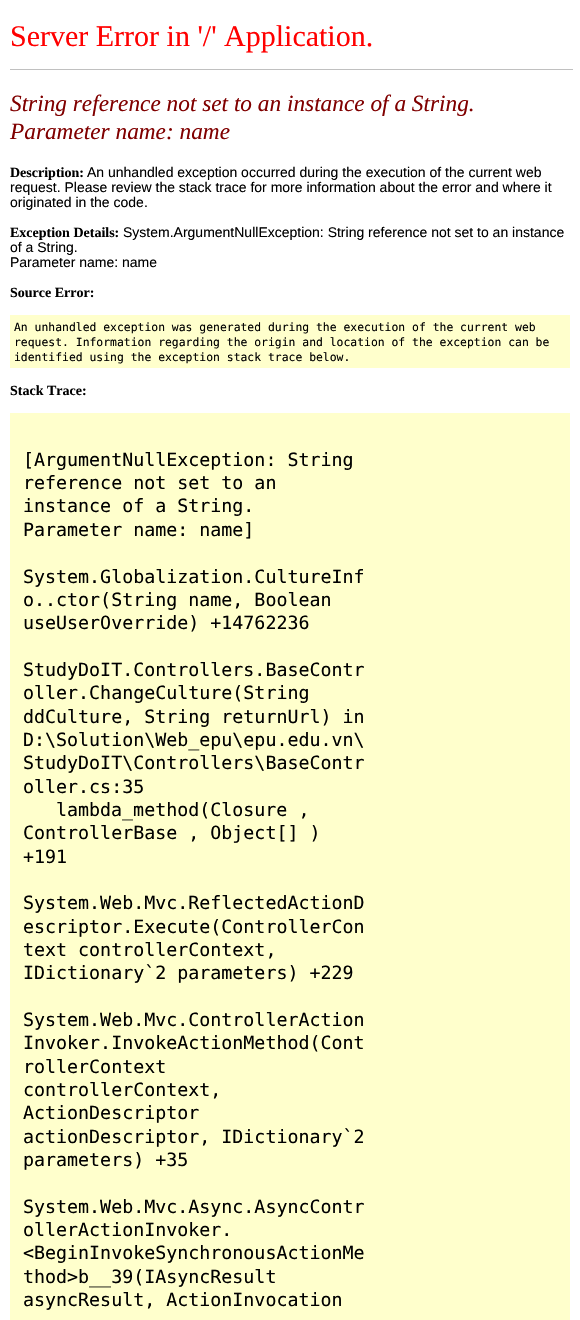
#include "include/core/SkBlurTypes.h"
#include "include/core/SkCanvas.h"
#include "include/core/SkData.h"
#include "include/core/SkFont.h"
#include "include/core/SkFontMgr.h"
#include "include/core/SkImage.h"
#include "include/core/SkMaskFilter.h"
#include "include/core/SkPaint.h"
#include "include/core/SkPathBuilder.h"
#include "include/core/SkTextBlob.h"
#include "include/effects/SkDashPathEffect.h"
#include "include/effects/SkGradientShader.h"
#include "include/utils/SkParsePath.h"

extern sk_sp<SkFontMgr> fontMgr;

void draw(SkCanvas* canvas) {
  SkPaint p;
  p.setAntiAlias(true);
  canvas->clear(SK_ColorWHITE);
  p.setColor(SkColorSetRGB(192, 192, 192));
  canvas->drawRect(SkRect::MakeLTRB(10, 69, 573, 70), p);
  p.setColor(SkColorSetRGB(255, 255, 204));
  canvas->drawRect(SkRect::MakeLTRB(10, 315, 570, 368), p);
  canvas->drawRect(SkRect::MakeLTRB(10, 413, 570, 1320), p);
  SkFont font1(fontMgr->matchFamilyStyle("Liberation Serif", SkFontStyle::Normal()), 30);
  font1.setSubpixel(true);
  p.setColor(SkColorSetRGB(255, 0, 0));
  canvas->drawString("Server Error in '/' Application.", 10, 46, font1, p);
  SkFont font2(fontMgr->matchFamilyStyle("Liberation Serif", SkFontStyle::Italic()), 23.3f);
  font2.setSubpixel(true);
  p.setColor(SkColorSetRGB(128, 0, 0));
  canvas->drawString("String reference not set to an instance of a String.", 10, 111, font2, p);
  canvas->drawString("Parameter name: name", 10, 139, font2, p);
  SkFont font3(fontMgr->matchFamilyStyle("Liberation Serif", SkFontStyle::Bold()), 14);
  font3.setSubpixel(true);
  p.setColor(SK_ColorBLACK);
  canvas->drawString("Description:", 10, 177, font3, p);
  SkFont font4(fontMgr->matchFamilyStyle("Liberation Sans", SkFontStyle::Normal()), 14);
  font4.setSubpixel(true);
  canvas->drawString("An unhandled exception occurred during the execution of the current web", 87, 177, font4, p);
  canvas->drawString("request. Please review the stack trace for more information about the error and where it", 10, 192, font4, p);
  canvas->drawString("originated in the code.", 10, 207, font4, p);
  canvas->drawString("Exception Details:", 10, 237, font3, p);
  canvas->drawString("System.ArgumentNullException: String reference not set to an instance", 123, 237, font4, p);
  canvas->drawString("of a String.", 10, 252, font4, p);
  canvas->drawString("Parameter name: name", 10, 267, font4, p);
  canvas->drawString("Source Error:", 10, 297, font3, p);
  SkFont font5(fontMgr->matchFamilyStyle("DejaVu Sans Mono", SkFontStyle::Normal()), 11.4f);
  font5.setSubpixel(true);
  canvas->drawString("An unhandled exception was generated during the execution of the current web", 14, 331, font5, p);
  canvas->drawString("request. Information regarding the origin and location of the exception can be", 14, 346, font5, p);
  canvas->drawString("identified using the exception stack trace below.", 14, 361, font5, p);
  canvas->drawString("Stack Trace:", 10, 395, font3, p);
  SkFont font6(fontMgr->matchFamilyStyle("DejaVu Sans Mono", SkFontStyle::Normal()), 18.3f);
  font6.setSubpixel(true);
  canvas->drawString("[ArgumentNullException: String", 23, 466, font6, p);
  canvas->drawString("reference not set to an", 23, 489, font6, p);
  canvas->drawString("instance of a String.", 23, 512, font6, p);
  canvas->drawString("Parameter name: name]", 23, 536, font6, p);
  canvas->drawString("System.Globalization.CultureInf", 23, 583, font6, p);
  canvas->drawString("o..ctor(String name, Boolean", 23, 606, font6, p);
  canvas->drawString("useUserOverride) +14762236", 23, 629, font6, p);
  canvas->drawString("StudyDoIT.Controllers.BaseContr", 23, 676, font6, p);
  canvas->drawString("oller.ChangeCulture(String", 23, 699, font6, p);
  canvas->drawString("ddCulture, String returnUrl) in", 23, 723, font6, p);
  canvas->drawString("D:\\Solution\\Web_epu\\epu.edu.vn\\", 23, 746, font6, p);
  canvas->drawString("StudyDoIT\\Controllers\\BaseContr", 23, 769, font6, p);
  canvas->drawString("oller.cs:35", 23, 793, font6, p);
  canvas->drawString("lambda_method(Closure ,", 56, 816, font6, p);
  canvas->drawString("ControllerBase , Object[] )", 23, 839, font6, p);
  canvas->drawString("+191", 23, 863, font6, p);
  canvas->drawString("System.Web.Mvc.ReflectedActionD", 23, 909, font6, p);
  canvas->drawString("escriptor.Execute(ControllerCon", 23, 933, font6, p);
  canvas->drawString("text controllerContext,", 23, 956, font6, p);
  canvas->drawString("IDictionary`2 parameters) +229", 23, 979, font6, p);
  canvas->drawString("System.Web.Mvc.ControllerAction", 23, 1026, font6, p);
  canvas->drawString("Invoker.InvokeActionMethod(Cont", 23, 1049, font6, p);
  canvas->drawString("rollerContext", 23, 1073, font6, p);
  canvas->drawString("controllerContext,", 23, 1096, font6, p);
  canvas->drawString("ActionDescriptor", 23, 1119, font6, p);
  canvas->drawString("actionDescriptor, IDictionary`2", 23, 1143, font6, p);
  canvas->drawString("parameters) +35", 23, 1166, font6, p);
  canvas->drawString("System.Web.Mvc.Async.AsyncContr", 23, 1213, font6, p);
  canvas->drawString("ollerActionInvoker.", 23, 1236, font6, p);
  canvas->drawString("<BeginInvokeSynchronousActionMe", 23, 1259, font6, p);
  canvas->drawString("thod>b__39(IAsyncResult", 23, 1283, font6, p);
  canvas->drawString("asyncResult, ActionInvocation", 23, 1306, font6, p);
}
